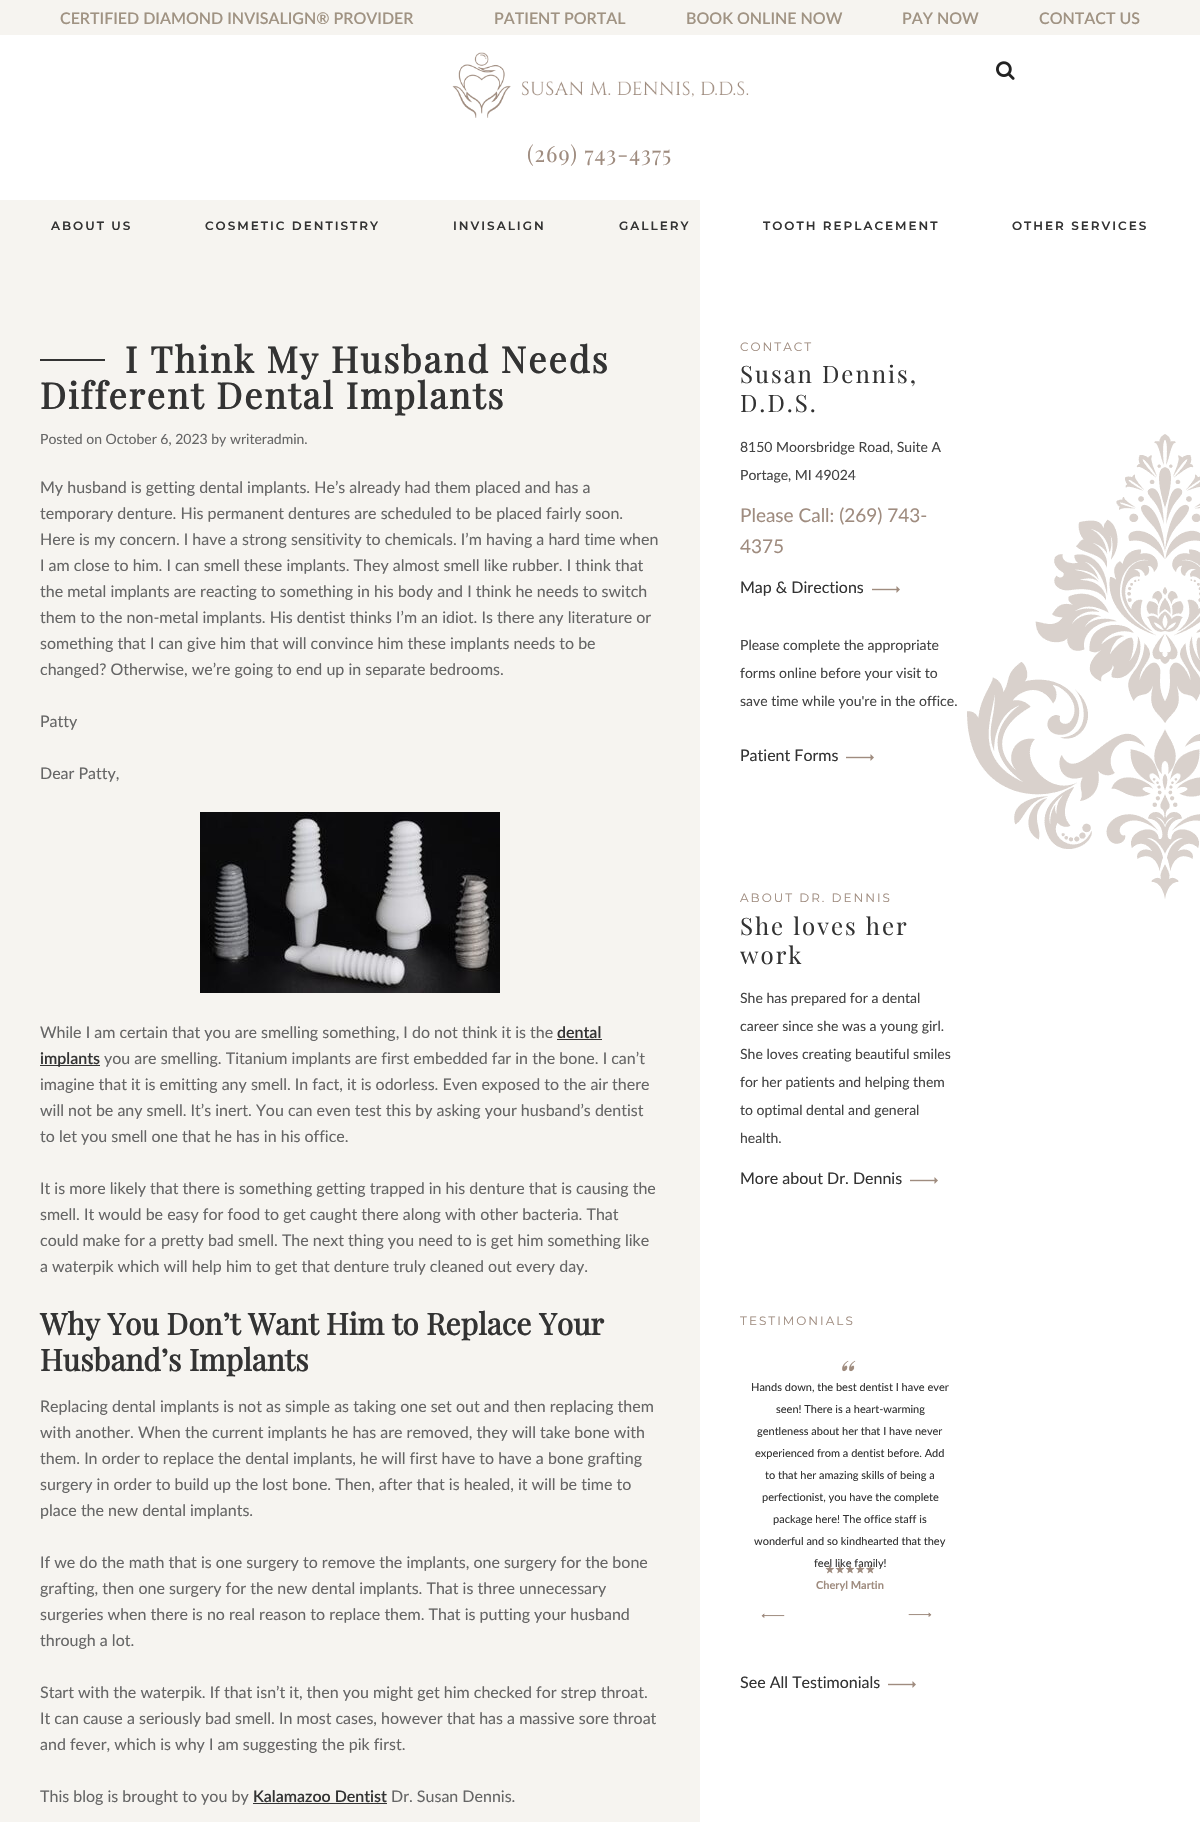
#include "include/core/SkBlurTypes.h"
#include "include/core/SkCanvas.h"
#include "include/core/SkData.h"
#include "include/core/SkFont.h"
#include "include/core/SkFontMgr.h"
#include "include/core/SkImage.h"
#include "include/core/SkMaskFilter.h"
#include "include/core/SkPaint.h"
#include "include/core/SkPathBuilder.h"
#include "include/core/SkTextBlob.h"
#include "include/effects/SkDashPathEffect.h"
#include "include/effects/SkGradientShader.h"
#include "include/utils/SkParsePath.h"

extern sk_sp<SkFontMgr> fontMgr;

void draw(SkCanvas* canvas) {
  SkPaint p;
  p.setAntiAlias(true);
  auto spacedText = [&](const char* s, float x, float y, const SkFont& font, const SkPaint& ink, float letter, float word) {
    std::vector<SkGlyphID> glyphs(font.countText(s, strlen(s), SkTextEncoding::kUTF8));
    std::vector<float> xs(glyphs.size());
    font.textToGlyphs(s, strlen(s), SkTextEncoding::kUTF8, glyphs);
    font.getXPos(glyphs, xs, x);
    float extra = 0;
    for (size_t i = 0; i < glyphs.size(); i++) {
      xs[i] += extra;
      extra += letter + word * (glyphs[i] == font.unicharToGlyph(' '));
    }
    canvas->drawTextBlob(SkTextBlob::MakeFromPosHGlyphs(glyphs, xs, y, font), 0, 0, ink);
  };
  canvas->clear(SK_ColorWHITE);
  p.setColor(SkColorSetRGB(246, 244, 240));
  canvas->drawRect(SkRect::MakeLTRB(0, 0, 1200, 35), p);
  canvas->drawImageRect(SkImages::DeferredFromEncodedData(SkData::MakeFromFileName("images/1.png")), SkRect::MakeLTRB(452, 52, 749, 118), SkSamplingOptions());
  canvas->drawImageRect(SkImages::DeferredFromEncodedData(SkData::MakeFromFileName("images/2.png")), SkRect::MakeLTRB(996, 61, 1015, 80), SkSamplingOptions());
  canvas->drawImageRect(SkImages::DeferredFromEncodedData(SkData::MakeFromFileName("images/3.png")), SkRect::MakeLTRB(967, 434, 1200, 899), SkSamplingOptions());
  canvas->drawRect(SkRect::MakeLTRB(0, 200, 700, 1822), p);
  p.setColor(SkColorSetRGB(51, 51, 51));
  canvas->drawRect(SkRect::MakeLTRB(40, 359, 105, 361), p);
  canvas->drawImageRect(SkImages::DeferredFromEncodedData(SkData::MakeFromFileName("images/4.png")), SkRect::MakeLTRB(200, 812, 500, 993), SkSamplingOptions());
  canvas->drawRect(SkRect::MakeLTRB(557, 1039, 602, 1040), p);
  canvas->drawRect(SkRect::MakeLTRB(40, 1065, 100, 1066), p);
  canvas->drawRect(SkRect::MakeLTRB(253, 1803, 387, 1804), p);
  canvas->drawImageRect(SkImages::DeferredFromEncodedData(SkData::MakeFromFileName("images/5.png")), SkRect::MakeLTRB(872, 586, 900, 593), SkSamplingOptions());
  canvas->drawImageRect(SkImages::DeferredFromEncodedData(SkData::MakeFromFileName("images/5.png")), SkRect::MakeLTRB(846, 754, 874, 761), SkSamplingOptions());
  canvas->drawImageRect(SkImages::DeferredFromEncodedData(SkData::MakeFromFileName("images/5.png")), SkRect::MakeLTRB(910, 1177, 938, 1184), SkSamplingOptions());
  canvas->drawImageRect(SkImages::DeferredFromEncodedData(SkData::MakeFromFileName("images/6.png")), SkRect::MakeLTRB(842, 1360, 856, 1372), SkSamplingOptions());
  canvas->drawImageRect(SkImages::DeferredFromEncodedData(SkData::MakeFromFileName("images/8.png")), SkRect::MakeLTRB(761, 1613, 785, 1618), SkSamplingOptions());
  canvas->drawImageRect(SkImages::DeferredFromEncodedData(SkData::MakeFromFileName("images/9.png")), SkRect::MakeLTRB(908, 1612, 932, 1617), SkSamplingOptions());
  canvas->drawImageRect(SkImages::DeferredFromEncodedData(SkData::MakeFromFileName("images/5.png")), SkRect::MakeLTRB(888, 1681, 916, 1688), SkSamplingOptions());
  SkFont font1(fontMgr->matchFamilyStyle("Lato", SkFontStyle(600, SkFontStyle::kNormal_Width, SkFontStyle::kUpright_Slant)), 16);
  font1.setSubpixel(true);
  p.setColor(SkColorSetRGB(160, 147, 131));
  canvas->drawString("CERTIFIED DIAMOND INVISALIGN® PROVIDER", 60, 24, font1, p);
  canvas->drawString("PATIENT PORTAL", 494, 24, font1, p);
  canvas->drawString("BOOK ONLINE NOW", 686, 24, font1, p);
  canvas->drawString("PAY NOW", 902, 24, font1, p);
  canvas->drawString("CONTACT US", 1039, 24, font1, p);
  SkFont font2(fontMgr->matchFamilyStyle("Playfair Display", SkFontStyle::Normal()), 22);
  font2.setSubpixel(true);
  p.setColor(SkColorSetRGB(159, 140, 127));
  spacedText("(269) 743-4375", 527, 162, font2, p, 1, 0);
  SkFont font3(fontMgr->matchFamilyStyle("Montserrat", SkFontStyle(600, SkFontStyle::kNormal_Width, SkFontStyle::kUpright_Slant)), 12);
  font3.setSubpixel(true);
  p.setColor(SkColorSetRGB(51, 51, 51));
  spacedText("ABOUT US", 51, 230, font3, p, 2, 0);
  spacedText("COSMETIC DENTISTRY", 205, 230, font3, p, 2, 0);
  spacedText("INVISALIGN", 453, 230, font3, p, 2, 0);
  spacedText("GALLERY", 619, 230, font3, p, 2, 0);
  spacedText("TOOTH REPLACEMENT", 763, 230, font3, p, 2, 0);
  spacedText("OTHER SERVICES", 1012, 230, font3, p, 2, 0);
  SkFont font4(fontMgr->matchFamilyStyle("Playfair Display", SkFontStyle::Bold()), 36);
  font4.setSubpixel(true);
  spacedText("I Think My Husband Needs", 125, 373, font4, p, 2, 0);
  spacedText("Different Dental Implants", 40, 409, font4, p, 2, 0);
  SkFont font5(fontMgr->matchFamilyStyle("Lato", SkFontStyle::Normal()), 14);
  font5.setSubpixel(true);
  p.setColor(SkColorSetRGB(102, 102, 102));
  canvas->drawString("Posted on October 6, 2023 by writeradmin.", 40, 444, font5, p);
  SkFont font6(fontMgr->matchFamilyStyle("Lato", SkFontStyle::Normal()), 16);
  font6.setSubpixel(true);
  canvas->drawString("My husband is getting dental implants. He’s already had them placed and has a", 40, 493, font6, p);
  canvas->drawString("temporary denture. His permanent dentures are scheduled to be placed fairly soon.", 40, 519, font6, p);
  canvas->drawString("Here is my concern. I have a strong sensitivity to chemicals. I’m having a hard time when", 40, 545, font6, p);
  canvas->drawString("I am close to him. I can smell these implants. They almost smell like rubber. I think that", 40, 571, font6, p);
  canvas->drawString("the metal implants are reacting to something in his body and I think he needs to switch", 40, 597, font6, p);
  canvas->drawString("them to the non-metal implants. His dentist thinks I’m an idiot. Is there any literature or", 40, 623, font6, p);
  canvas->drawString("something that I can give him that will convince him these implants needs to be", 40, 649, font6, p);
  canvas->drawString("changed? Otherwise, we’re going to end up in separate bedrooms.", 40, 675, font6, p);
  canvas->drawString("Patty", 40, 727, font6, p);
  canvas->drawString("Dear Patty,", 40, 779, font6, p);
  canvas->drawString("While I am certain that you are smelling something, I do not think it is the", 40, 1038, font6, p);
  p.setColor(SkColorSetRGB(51, 51, 51));
  canvas->drawString("dental", 557, 1038, font1, p);
  canvas->drawString("implants", 40, 1064, font1, p);
  p.setColor(SkColorSetRGB(102, 102, 102));
  canvas->drawString("you are smelling. Titanium implants are first embedded far in the bone. I can’t", 104, 1064, font6, p);
  canvas->drawString("imagine that it is emitting any smell. In fact, it is odorless. Even exposed to the air there", 40, 1090, font6, p);
  canvas->drawString("will not be any smell. It’s inert. You can even test this by asking your husband’s dentist", 40, 1116, font6, p);
  canvas->drawString("to let you smell one that he has in his office.", 40, 1142, font6, p);
  canvas->drawString("It is more likely that there is something getting trapped in his denture that is causing the", 40, 1194, font6, p);
  canvas->drawString("smell. It would be easy for food to get caught there along with other bacteria. That", 40, 1220, font6, p);
  canvas->drawString("could make for a pretty bad smell. The next thing you need to is get him something like", 40, 1246, font6, p);
  canvas->drawString("a waterpik which will help him to get that denture truly cleaned out every day.", 40, 1272, font6, p);
  SkFont font7(fontMgr->matchFamilyStyle("Playfair Display", SkFontStyle::Bold()), 30);
  font7.setSubpixel(true);
  p.setColor(SkColorSetRGB(51, 51, 51));
  canvas->drawString("Why You Don’t Want Him to Replace Your", 40, 1335, font7, p);
  canvas->drawString("Husband’s Implants", 40, 1371, font7, p);
  p.setColor(SkColorSetRGB(102, 102, 102));
  canvas->drawString("Replacing dental implants is not as simple as taking one set out and then replacing them", 40, 1412, font6, p);
  canvas->drawString("with another. When the current implants he has are removed, they will take bone with", 40, 1438, font6, p);
  canvas->drawString("them. In order to replace the dental implants, he will first have to have a bone grafting", 40, 1464, font6, p);
  canvas->drawString("surgery in order to build up the lost bone. Then, after that is healed, it will be time to", 40, 1490, font6, p);
  canvas->drawString("place the new dental implants.", 40, 1516, font6, p);
  canvas->drawString("If we do the math that is one surgery to remove the implants, one surgery for the bone", 40, 1568, font6, p);
  canvas->drawString("grafting, then one surgery for the new dental implants. That is three unnecessary", 40, 1594, font6, p);
  canvas->drawString("surgeries when there is no real reason to replace them. That is putting your husband", 40, 1620, font6, p);
  canvas->drawString("through a lot.", 40, 1646, font6, p);
  canvas->drawString("Start with the waterpik. If that isn’t it, then you might get him checked for strep throat.", 40, 1698, font6, p);
  canvas->drawString("It can cause a seriously bad smell. In most cases, however that has a massive sore throat", 40, 1724, font6, p);
  canvas->drawString("and fever, which is why I am suggesting the pik first.", 40, 1750, font6, p);
  canvas->drawString("This blog is brought to you by", 40, 1802, font6, p);
  p.setColor(SkColorSetRGB(51, 51, 51));
  canvas->drawString("Kalamazoo Dentist", 253, 1802, font1, p);
  p.setColor(SkColorSetRGB(102, 102, 102));
  canvas->drawString("Dr. Susan Dennis.", 391, 1802, font6, p);
  SkFont font8(fontMgr->matchFamilyStyle("Montserrat", SkFontStyle::Normal()), 12);
  font8.setSubpixel(true);
  p.setColor(SkColorSetRGB(159, 140, 127));
  spacedText("CONTACT", 740, 351, font8, p, 2, 0);
  SkFont font9(fontMgr->matchFamilyStyle("Playfair Display", SkFontStyle::Normal()), 24);
  font9.setSubpixel(true);
  p.setColor(SkColorSetRGB(51, 51, 51));
  spacedText("Susan Dennis,", 740, 383, font9, p, 2, 0);
  spacedText("D.D.S.", 740, 412, font9, p, 2, 0);
  p.setColor(SkColorSetRGB(68, 68, 68));
  canvas->drawString("8150 Moorsbridge Road, Suite A", 740, 452, font5, p);
  canvas->drawString("Portage, MI 49024", 740, 480, font5, p);
  SkFont font10(fontMgr->matchFamilyStyle("Lato", SkFontStyle::Normal()), 19);
  font10.setSubpixel(true);
  p.setColor(SkColorSetRGB(159, 140, 127));
  canvas->drawString("Please Call: (269) 743-", 740, 522, font10, p);
  canvas->drawString("4375", 740, 553, font10, p);
  p.setColor(SkColorSetRGB(51, 51, 51));
  canvas->drawString("Map & Directions", 740, 593, font6, p);
  p.setColor(SkColorSetRGB(68, 68, 68));
  canvas->drawString("Please complete the appropriate", 740, 650, font5, p);
  canvas->drawString("forms online before your visit to", 740, 678, font5, p);
  canvas->drawString("save time while you're in the office.", 740, 706, font5, p);
  p.setColor(SkColorSetRGB(51, 51, 51));
  canvas->drawString("Patient Forms", 740, 761, font6, p);
  p.setColor(SkColorSetRGB(159, 140, 127));
  spacedText("ABOUT DR. DENNIS", 740, 902, font8, p, 2, 0);
  p.setColor(SkColorSetRGB(51, 51, 51));
  spacedText("She loves her", 740, 935, font9, p, 2, 0);
  spacedText("work", 740, 964, font9, p, 2, 0);
  p.setColor(SkColorSetRGB(68, 68, 68));
  canvas->drawString("She has prepared for a dental", 740, 1003, font5, p);
  canvas->drawString("career since she was a young girl.", 740, 1031, font5, p);
  canvas->drawString("She loves creating beautiful smiles", 740, 1059, font5, p);
  canvas->drawString("for her patients and helping them", 740, 1087, font5, p);
  canvas->drawString("to optimal dental and general", 740, 1115, font5, p);
  canvas->drawString("health.", 740, 1143, font5, p);
  p.setColor(SkColorSetRGB(51, 51, 51));
  canvas->drawString("More about Dr. Dennis", 740, 1184, font6, p);
  p.setColor(SkColorSetRGB(159, 140, 127));
  spacedText("TESTIMONIALS", 740, 1325, font8, p, 2, 0);
  SkFont font11(fontMgr->matchFamilyStyle("Lato", SkFontStyle::Normal()), 11);
  font11.setSubpixel(true);
  p.setColor(SkColorSetRGB(51, 51, 51));
  canvas->drawString("Hands down, the best dentist I have ever", 751, 1391, font11, p);
  canvas->drawString("seen! There is a heart-warming", 776, 1413, font11, p);
  canvas->drawString("gentleness about her that I have never", 757, 1435, font11, p);
  canvas->drawString("experienced from a dentist before. Add", 755, 1457, font11, p);
  canvas->drawString("to that her amazing skills of being a", 765, 1479, font11, p);
  canvas->drawString("perfectionist, you have the complete", 762, 1501, font11, p);
  canvas->drawString("package here! The office staff is", 773, 1523, font11, p);
  canvas->drawString("wonderful and so kindhearted that they", 754, 1545, font11, p);
  canvas->drawString("feel like family!", 814, 1567, font11, p);
  canvas->drawImageRect(SkImages::DeferredFromEncodedData(SkData::MakeFromFileName("images/7.png")), SkRect::MakeLTRB(825, 1564, 875, 1574), SkSamplingOptions());
  SkFont font12(fontMgr->matchFamilyStyle("Lato", SkFontStyle::Bold()), 11);
  font12.setSubpixel(true);
  p.setColor(SkColorSetRGB(159, 140, 127));
  canvas->drawString("Cheryl Martin", 816, 1589, font12, p);
  p.setColor(SkColorSetRGB(51, 51, 51));
  canvas->drawString("See All Testimonials", 740, 1688, font6, p);
}
